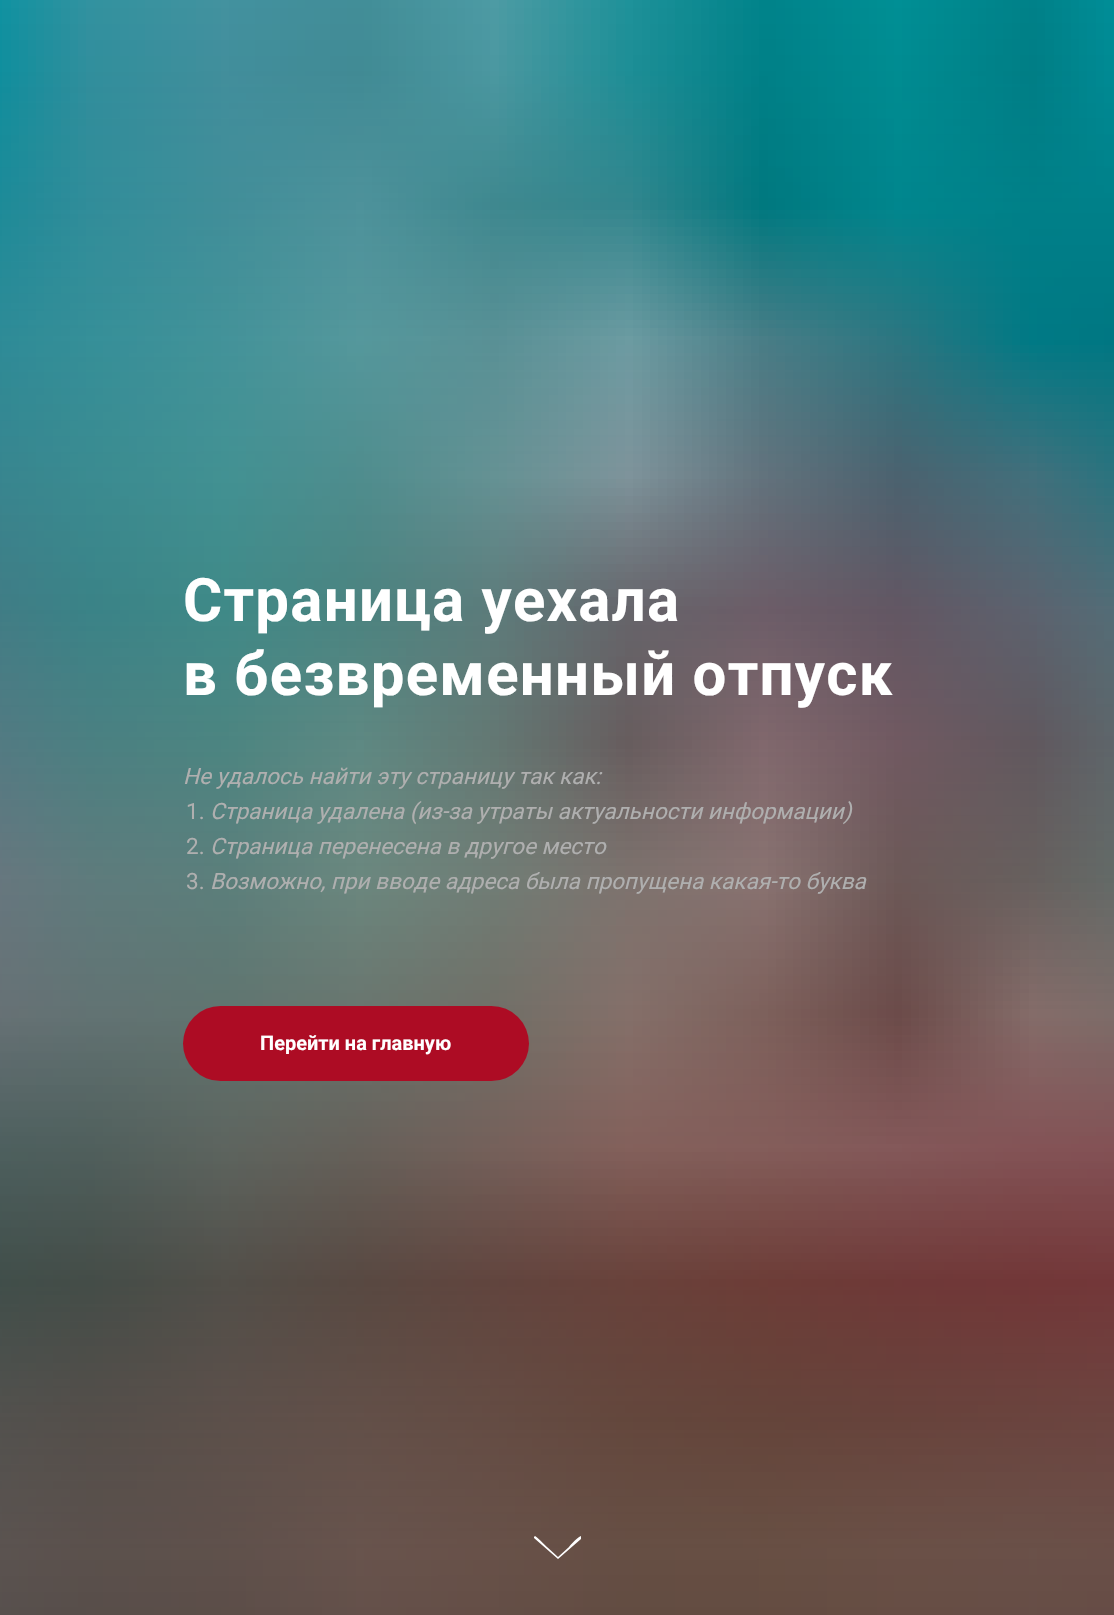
#include "include/core/SkBlurTypes.h"
#include "include/core/SkCanvas.h"
#include "include/core/SkData.h"
#include "include/core/SkFont.h"
#include "include/core/SkFontMgr.h"
#include "include/core/SkImage.h"
#include "include/core/SkMaskFilter.h"
#include "include/core/SkPaint.h"
#include "include/core/SkPathBuilder.h"
#include "include/core/SkTextBlob.h"
#include "include/effects/SkDashPathEffect.h"
#include "include/effects/SkGradientShader.h"
#include "include/utils/SkParsePath.h"

extern sk_sp<SkFontMgr> fontMgr;

void draw(SkCanvas* canvas) {
  SkPaint p;
  p.setAntiAlias(true);
  auto spacedText = [&](const char* s, float x, float y, const SkFont& font, const SkPaint& ink, float letter, float word) {
    std::vector<SkGlyphID> glyphs(font.countText(s, strlen(s), SkTextEncoding::kUTF8));
    std::vector<float> xs(glyphs.size());
    font.textToGlyphs(s, strlen(s), SkTextEncoding::kUTF8, glyphs);
    font.getXPos(glyphs, xs, x);
    float extra = 0;
    for (size_t i = 0; i < glyphs.size(); i++) {
      xs[i] += extra;
      extra += letter + word * (glyphs[i] == font.unicharToGlyph(' '));
    }
    canvas->drawTextBlob(SkTextBlob::MakeFromPosHGlyphs(glyphs, xs, y, font), 0, 0, ink);
  };
  canvas->clear(SK_ColorWHITE);
  canvas->drawImageRect(SkImages::DeferredFromEncodedData(SkData::MakeFromFileName("images/1.png")), SkRect::MakeLTRB(0, 0, 1114, 1615), SkSamplingOptions());
  p.setColor(SkColorSetRGB(173, 12, 36));
  canvas->drawRoundRect(SkRect::MakeLTRB(183, 1006, 529, 1081), 37.5f, 37.5f, p);
  canvas->save();
  canvas->clipRect(SkRect::MakeLTRB(534, 1536, 581, 1560));
  p.setColor(SK_ColorWHITE);
  canvas->drawPath(SkPathBuilder().moveTo(558, 1559).lineTo(534, 1538).cubicTo(533, 1538, 534, 1537, 535, 1536).cubicTo(536, 1536, 545, 1545, 547, 1547).lineTo(558, 1557).lineTo(569, 1547).cubicTo(570, 1545, 579, 1536, 581, 1536).cubicTo(582, 1536, 582, 1538, 582, 1538).close().detach(), p);
  canvas->restore();
  SkFont font1(fontMgr->matchFamilyStyle("Roboto", SkFontStyle::Bold()), 60);
  font1.setSubpixel(true);
  spacedText("Страница уехала", 183, 621, font1, p, 1.25f, 0);
  spacedText("в безвременный отпуск", 183, 695, font1, p, 1.25f, 0);
  SkFont font2(fontMgr->matchFamilyStyle("Roboto", SkFontStyle::Italic()), 22.5f);
  font2.setSubpixel(true);
  p.setColor(SkColorSetRGB(175, 175, 175));
  canvas->drawString("Не удалось найти эту страницу так как:", 183, 784, font2, p);
  SkFont font3(fontMgr->matchFamilyStyle("Roboto", SkFontStyle::Normal()), 22.5f);
  font3.setSubpixel(true);
  canvas->drawString("1.", 186, 819, font3, p);
  canvas->drawString("Страница удалена (из-за утраты актуальности информации)", 210, 819, font2, p);
  canvas->drawString("2.", 186, 854, font3, p);
  canvas->drawString("Страница перенесена в другое место", 210, 854, font2, p);
  canvas->drawString("3.", 186, 889, font3, p);
  canvas->drawString("Возможно, при вводе адреса была пропущена какая-то буква", 210, 889, font2, p);
  SkFont font4(fontMgr->matchFamilyStyle("Roboto", SkFontStyle::Bold()), 20);
  font4.setSubpixel(true);
  p.setColor(SK_ColorWHITE);
  canvas->drawString("Перейти на главную", 260, 1050, font4, p);
}
